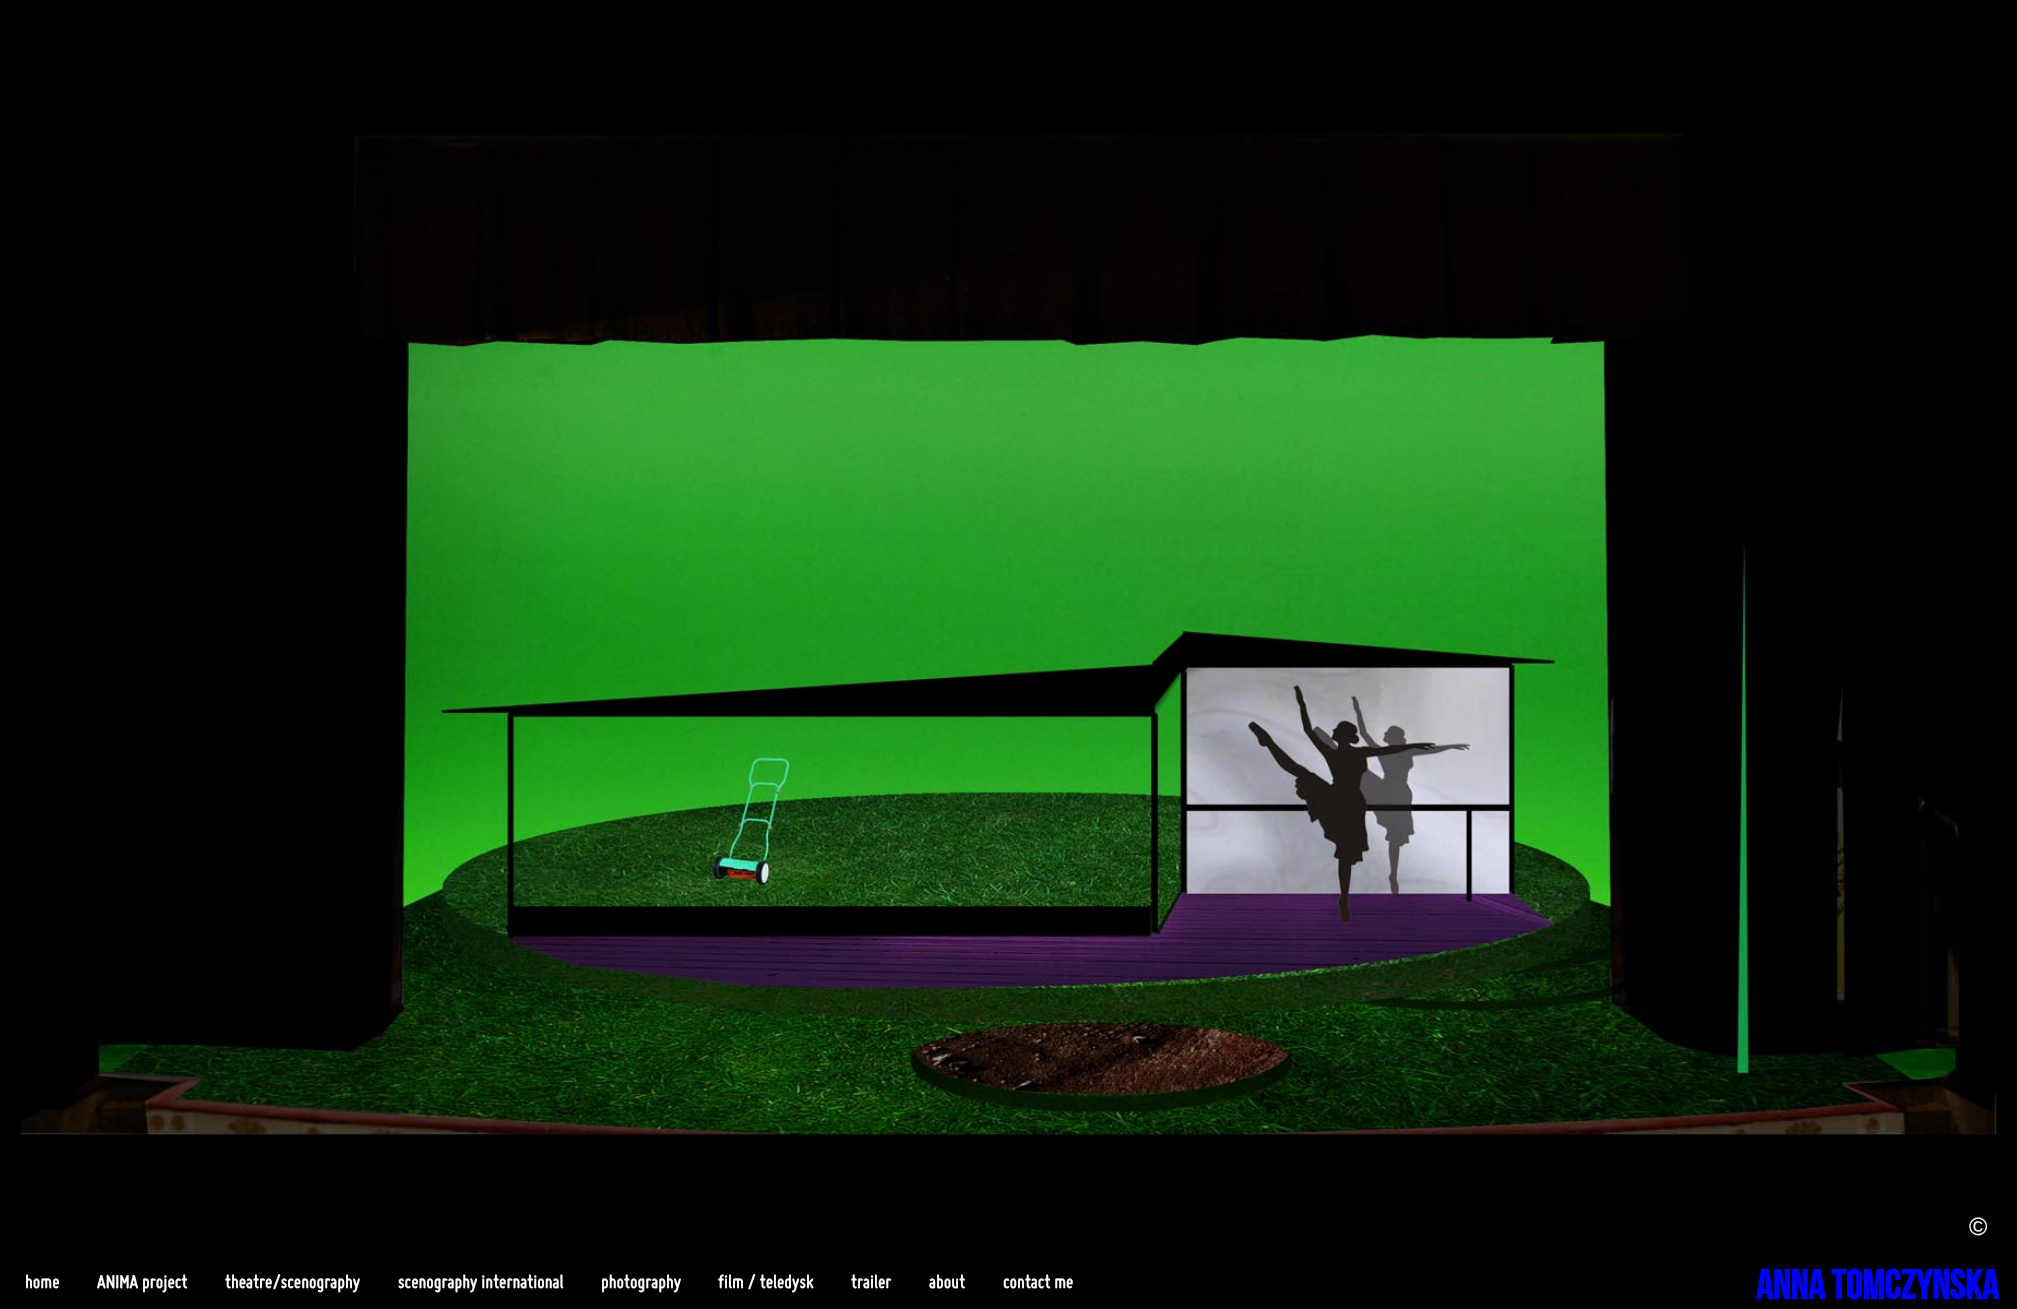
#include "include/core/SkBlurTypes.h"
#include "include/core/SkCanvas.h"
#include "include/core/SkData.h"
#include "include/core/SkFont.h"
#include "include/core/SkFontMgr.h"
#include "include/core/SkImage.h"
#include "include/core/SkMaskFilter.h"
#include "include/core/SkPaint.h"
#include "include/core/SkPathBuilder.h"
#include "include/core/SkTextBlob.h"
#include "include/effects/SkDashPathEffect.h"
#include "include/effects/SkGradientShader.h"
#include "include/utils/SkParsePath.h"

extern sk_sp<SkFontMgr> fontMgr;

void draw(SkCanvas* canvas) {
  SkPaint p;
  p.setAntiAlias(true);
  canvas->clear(SK_ColorBLACK);
  canvas->drawImageRect(SkImages::DeferredFromEncodedData(SkData::MakeFromFileName("images/1.png")), SkRect::MakeLTRB(21, 132, 1997, 1136), SkSamplingOptions());
  SkFont font1(fontMgr->matchFamilyStyle("Liberation Sans", SkFontStyle::Normal()), 25);
  font1.setSubpixel(true);
  p.setColor(SK_ColorWHITE);
  canvas->drawString("©", 1969, 1235, font1, p);
  SkFont font2(fontMgr->matchFamilyStyle("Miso", SkFontStyle::BoldItalic()), 20);
  font2.setSubpixel(true);
  canvas->drawString("home", 25, 1288, font2, p);
  canvas->drawString("ANIMA project", 97, 1288, font2, p);
  canvas->drawString("theatre/scenography", 225, 1288, font2, p);
  canvas->drawString("scenography international", 398, 1288, font2, p);
  canvas->drawString("photography", 601, 1288, font2, p);
  canvas->drawString("film / teledysk", 718, 1288, font2, p);
  canvas->drawString("trailer", 851, 1288, font2, p);
  canvas->drawString("about", 929, 1288, font2, p);
  canvas->drawString("contact me", 1003, 1288, font2, p);
  SkFont font3(fontMgr->matchFamilyStyle("Bebas Neue", SkFontStyle::Bold()), 41.25f);
  font3.setSubpixel(true);
  p.setColor(SkColorSetRGB(0, 0, 255));
  canvas->drawString("ANNA TOMCZYNSKA", 1756, 1299, font3, p);
}
